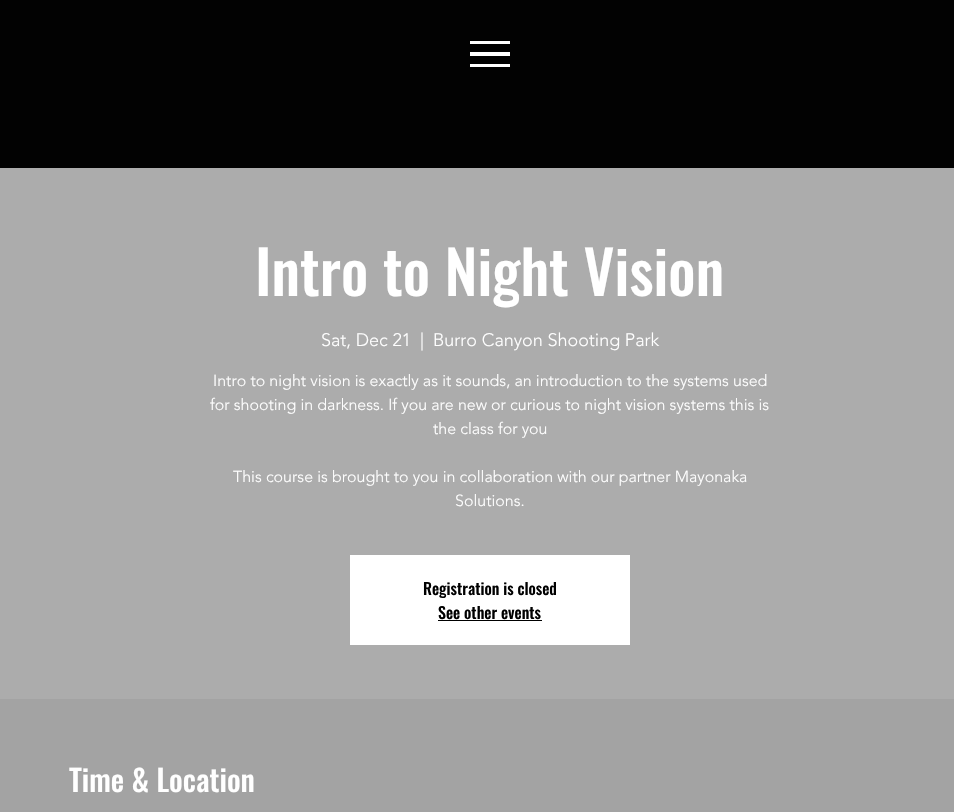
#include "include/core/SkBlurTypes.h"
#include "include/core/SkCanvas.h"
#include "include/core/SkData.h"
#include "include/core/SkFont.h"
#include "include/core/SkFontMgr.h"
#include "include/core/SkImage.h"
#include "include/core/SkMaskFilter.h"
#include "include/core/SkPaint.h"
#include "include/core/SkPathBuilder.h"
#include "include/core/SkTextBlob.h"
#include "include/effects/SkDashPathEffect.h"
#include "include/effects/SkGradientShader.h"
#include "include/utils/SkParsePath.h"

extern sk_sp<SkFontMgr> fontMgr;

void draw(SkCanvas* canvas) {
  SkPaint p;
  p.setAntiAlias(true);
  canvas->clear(SkColorSetRGB(163, 163, 163));
  p.setColor(SkColorSetRGB(2, 2, 2));
  canvas->drawRect(SkRect::MakeLTRB(0, 0, 954, 168), p);
  p.setColor(SK_ColorWHITE);
  canvas->drawRect(SkRect::MakeLTRB(470, 64, 510, 67), p);
  canvas->drawRect(SkRect::MakeLTRB(470, 41, 510, 44), p);
  canvas->drawRect(SkRect::MakeLTRB(470, 52, 510, 56), p);
  p.setColor(SkColorSetRGB(172, 172, 172));
  canvas->drawRect(SkRect::MakeLTRB(0, 168, 954, 699), p);
  p.setColor(SK_ColorWHITE);
  canvas->drawRect(SkRect::MakeLTRB(350, 555, 630, 645), p);
  p.setColor(SK_ColorBLACK);
  canvas->drawRect(SkRect::MakeLTRB(438, 620, 542, 621), p);
  SkFont font1(fontMgr->matchFamilyStyle("Oswald", SkFontStyle(500, SkFontStyle::kNormal_Width, SkFontStyle::kUpright_Slant)), 60);
  font1.setSubpixel(true);
  p.setColor(SK_ColorWHITE);
  canvas->drawString("Intro to Night Vision", 255, 296, font1, p);
  SkFont font2(fontMgr->matchFamilyStyle("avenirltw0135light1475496", SkFontStyle(300, SkFontStyle::kNormal_Width, SkFontStyle::kUpright_Slant)), 18);
  font2.setSubpixel(true);
  canvas->drawString("Sat, Dec 21", 321, 346, font2, p);
  canvas->drawString("|", 420, 346, font2, p);
  canvas->drawString("Burro Canyon Shooting Park", 433, 346, font2, p);
  SkFont font3(fontMgr->matchFamilyStyle("avenirltw0135light1475496", SkFontStyle(300, SkFontStyle::kNormal_Width, SkFontStyle::kUpright_Slant)), 16);
  font3.setSubpixel(true);
  canvas->drawString("Intro to night vision is exactly as it sounds, an introduction to the systems used", 213, 386, font3, p);
  canvas->drawString("for shooting in darkness. If you are new or curious to night vision systems this is", 210, 410, font3, p);
  canvas->drawString("the class for you", 433, 434, font3, p);
  canvas->drawString("This course is brought to you in collaboration with our partner Mayonaka", 233, 482, font3, p);
  canvas->drawString("Solutions.", 455, 506, font3, p);
  SkFont font4(fontMgr->matchFamilyStyle("Oswald", SkFontStyle(500, SkFontStyle::kNormal_Width, SkFontStyle::kUpright_Slant)), 16);
  font4.setSubpixel(true);
  p.setColor(SK_ColorBLACK);
  canvas->drawString("Registration is closed", 423, 595, font4, p);
  canvas->drawString("See other events", 438, 619, font4, p);
  SkFont font5(fontMgr->matchFamilyStyle("Oswald", SkFontStyle(500, SkFontStyle::kNormal_Width, SkFontStyle::kUpright_Slant)), 30);
  font5.setSubpixel(true);
  p.setColor(SK_ColorWHITE);
  canvas->drawString("Time & Location", 69, 792, font5, p);
}
